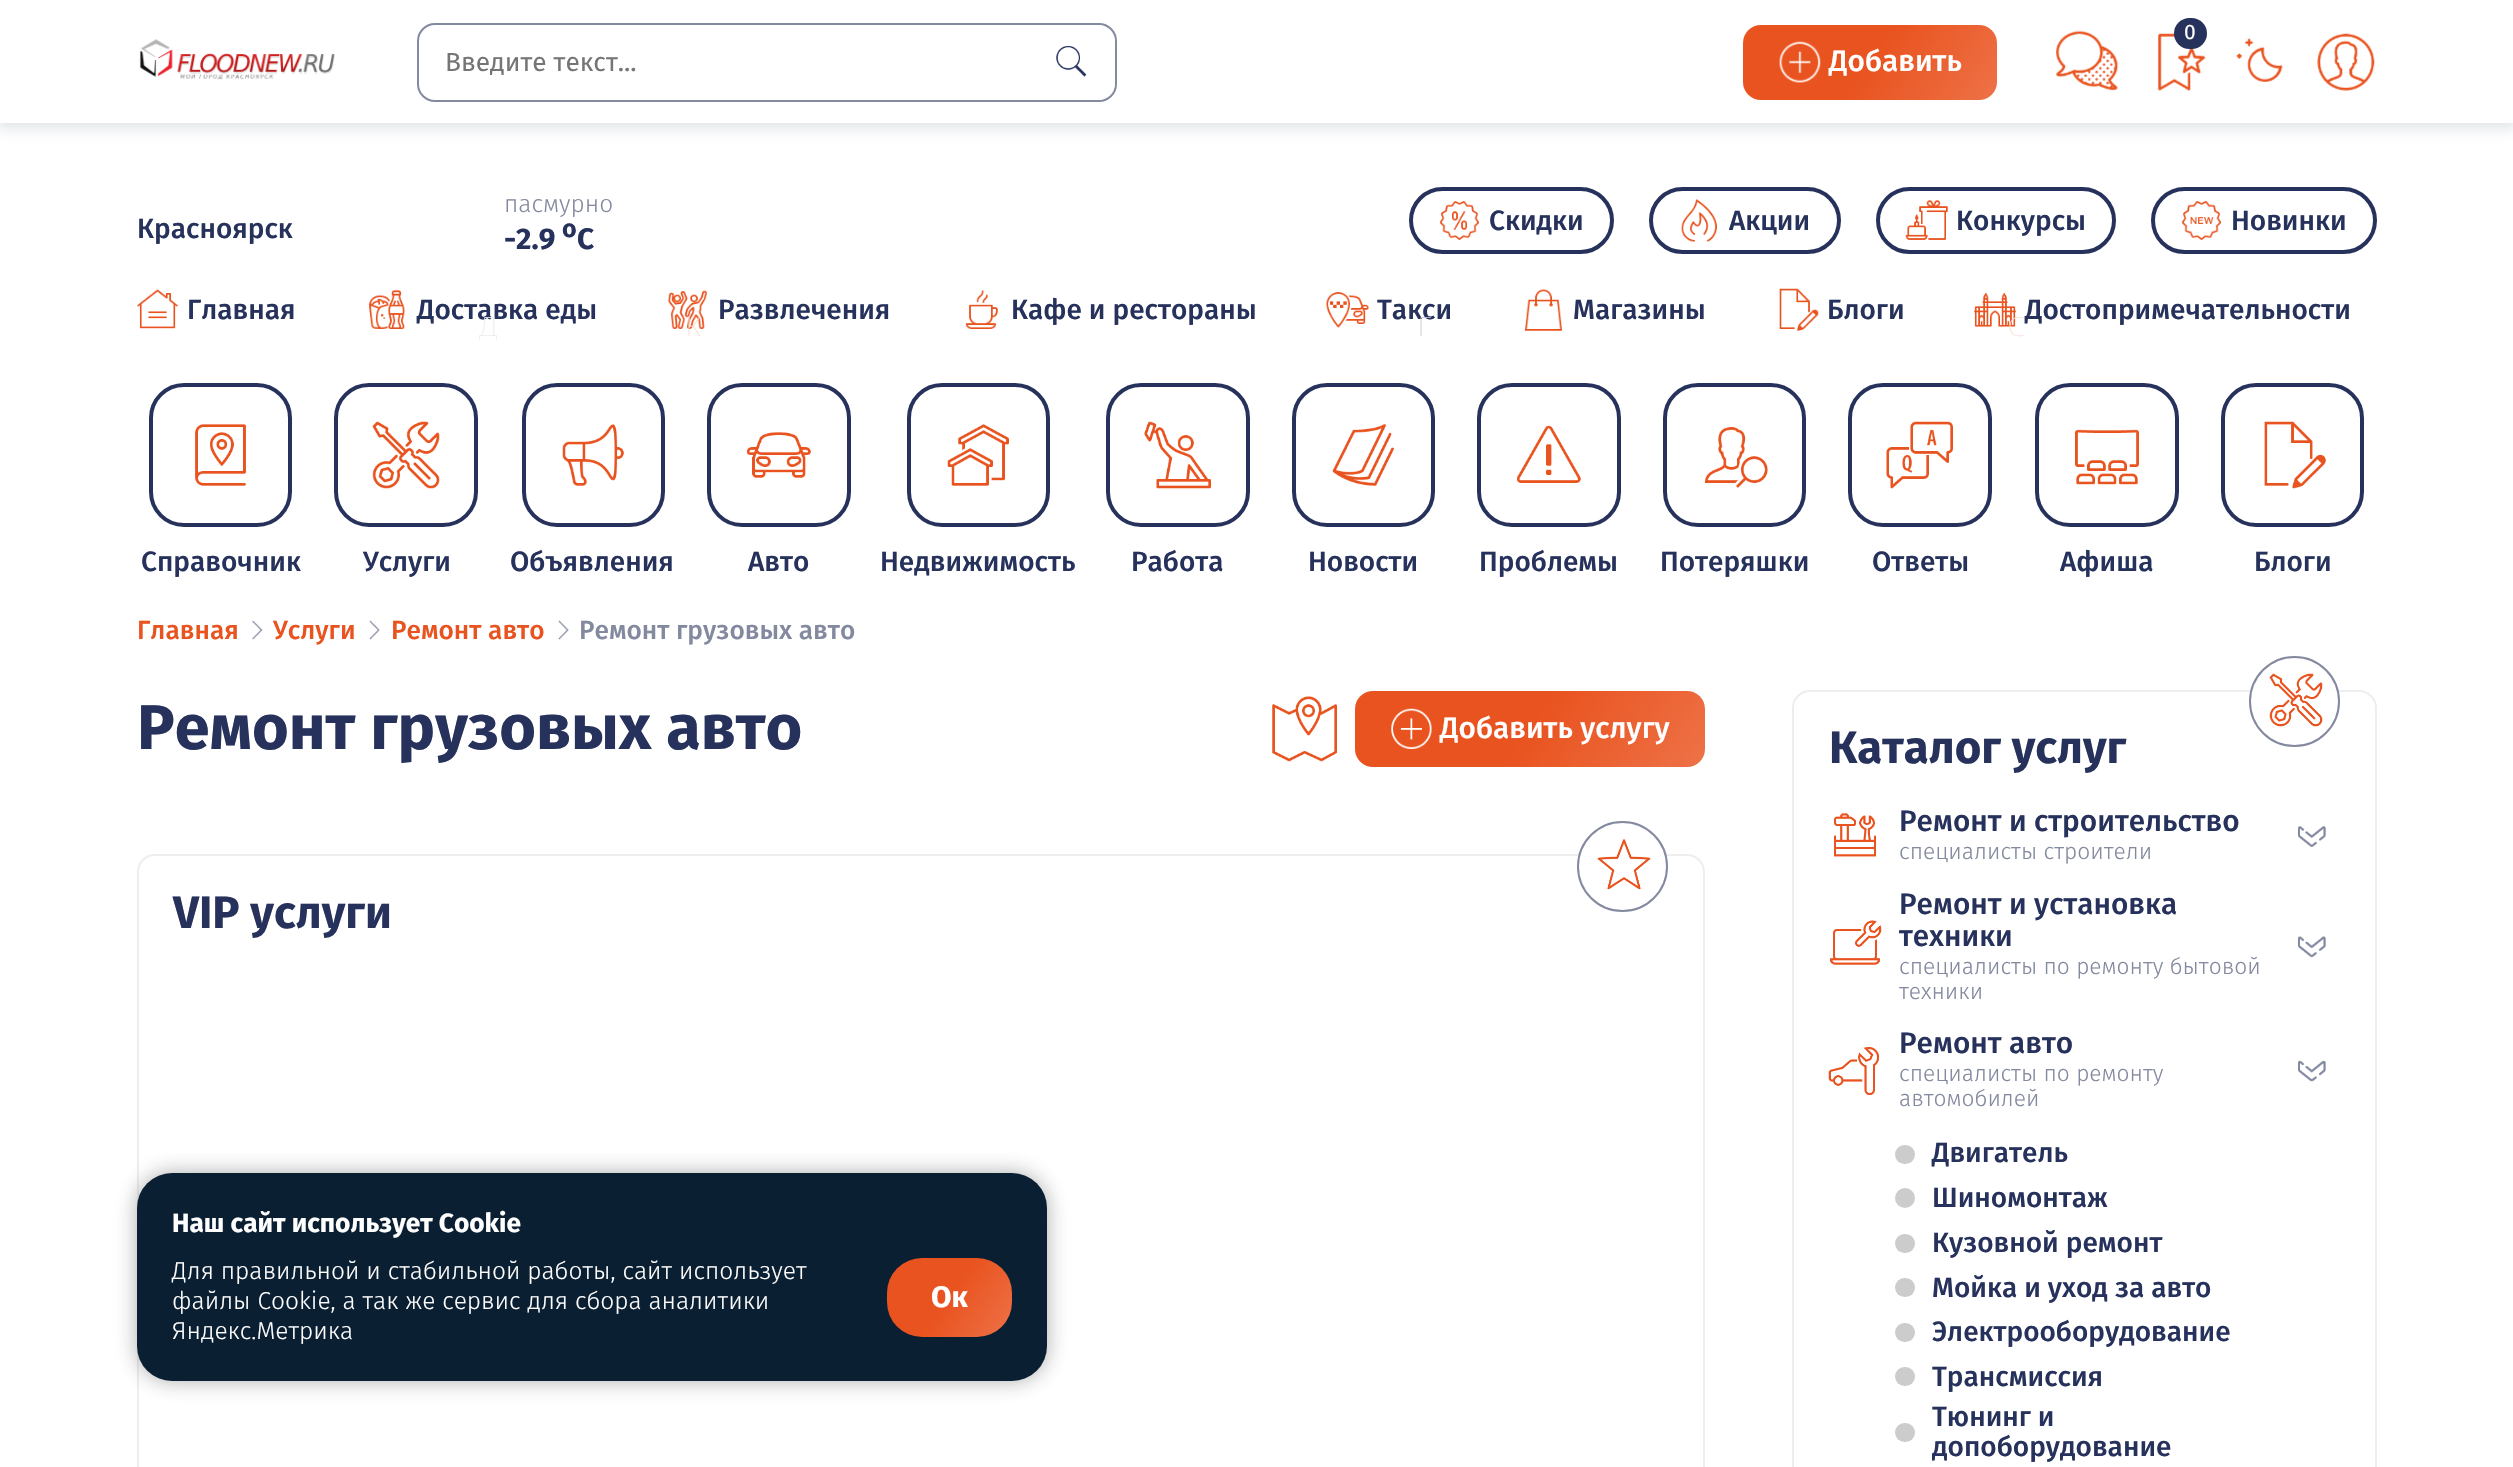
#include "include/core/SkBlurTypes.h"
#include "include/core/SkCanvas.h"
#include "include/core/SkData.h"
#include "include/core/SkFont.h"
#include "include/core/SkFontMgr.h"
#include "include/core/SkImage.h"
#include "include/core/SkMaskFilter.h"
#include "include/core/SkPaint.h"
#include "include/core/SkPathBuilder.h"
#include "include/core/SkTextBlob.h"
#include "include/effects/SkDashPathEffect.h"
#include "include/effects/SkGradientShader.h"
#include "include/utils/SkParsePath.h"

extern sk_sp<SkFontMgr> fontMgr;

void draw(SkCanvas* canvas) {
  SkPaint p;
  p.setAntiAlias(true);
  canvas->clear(SK_ColorWHITE);
  p.setColor(SkColorSetARGB(38, 34, 60, 80));
  p.setMaskFilter(SkMaskFilter::MakeBlur(kNormal_SkBlurStyle, 7));
  canvas->drawRect(SkRect::MakeLTRB(-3, -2, 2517, 128), p);
  p.setMaskFilter(nullptr);
  p.setColor(SK_ColorWHITE);
  canvas->drawRect(SkRect::MakeLTRB(0, 0, 2513, 123), p);
  canvas->drawImageRect(SkImages::DeferredFromEncodedData(SkData::MakeFromFileName("images/1.png")), SkRect::MakeLTRB(139, 39, 335, 80), SkSamplingOptions());
  p.setStyle(SkPaint::kStroke_Style);
  p.setStrokeWidth(2);
  p.setColor(SkColorSetRGB(131, 137, 159));
  canvas->drawRoundRect(SkRect::MakeLTRB(418, 24, 1116, 101), 17, 17, p);
  p.setStyle(SkPaint::kFill_Style);
  p.setColor(SK_ColorWHITE);
  canvas->drawRoundRect(SkRect::MakeLTRB(1027, 25, 1115, 100), 18, 18, p);
  canvas->drawImageRect(SkImages::DeferredFromEncodedData(SkData::MakeFromFileName("images/2.png")), SkRect::MakeLTRB(1056, 46, 1087, 77), SkSamplingOptions());
  {
    const SkColor colors[] = {SkColorSetRGB(241, 136, 100), SkColorSetRGB(233, 83, 31)};
    const float stops[] = {0, 0.64f};
    const SkPoint ends[] = {{2049, 188}, {1767, -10}};
    p.setShader(SkGradientShader::MakeLinear(ends, colors, stops, 2, SkTileMode::kClamp));
    p.setAlpha(255);
  }
  canvas->drawRoundRect(SkRect::MakeLTRB(1743, 25, 1997, 100), 18, 18, p);
  canvas->drawImageRect(SkImages::DeferredFromEncodedData(SkData::MakeFromFileName("images/3.png")), SkRect::MakeLTRB(1779, 41, 1821, 83), SkSamplingOptions());
  canvas->drawImageRect(SkImages::DeferredFromEncodedData(SkData::MakeFromFileName("images/4.png")), SkRect::MakeLTRB(2056, 30, 2119, 91), SkSamplingOptions());
  canvas->drawImageRect(SkImages::DeferredFromEncodedData(SkData::MakeFromFileName("images/5.png")), SkRect::MakeLTRB(2158, 33, 2206, 91), SkSamplingOptions());
  p.setShader(nullptr);
  p.setColor(SkColorSetRGB(38, 50, 92));
  canvas->drawRoundRect(SkRect::MakeLTRB(2174, 18, 2207, 49), 15.5f, 15.5f, p);
  canvas->drawImageRect(SkImages::DeferredFromEncodedData(SkData::MakeFromFileName("images/6.png")), SkRect::MakeLTRB(2236, 38, 2283, 82), SkSamplingOptions());
  canvas->drawImageRect(SkImages::DeferredFromEncodedData(SkData::MakeFromFileName("images/7.png")), SkRect::MakeLTRB(2317, 33, 2375, 91), SkSamplingOptions());
  p.setStyle(SkPaint::kStroke_Style);
  p.setStrokeWidth(4);
  canvas->drawRoundRect(SkRect::MakeLTRB(1411, 189, 1612, 252), 31.5f, 31.5f, p);
  canvas->drawImageRect(SkImages::DeferredFromEncodedData(SkData::MakeFromFileName("images/8.png")), SkRect::MakeLTRB(1439, 201, 1480, 240), SkSamplingOptions());
  canvas->drawRoundRect(SkRect::MakeLTRB(1651, 189, 1839, 252), 31.5f, 31.5f, p);
  canvas->drawImageRect(SkImages::DeferredFromEncodedData(SkData::MakeFromFileName("images/9.png")), SkRect::MakeLTRB(1681, 199, 1717, 242), SkSamplingOptions());
  canvas->drawRoundRect(SkRect::MakeLTRB(1878, 189, 2114, 252), 31.5f, 31.5f, p);
  canvas->drawImageRect(SkImages::DeferredFromEncodedData(SkData::MakeFromFileName("images/10.png")), SkRect::MakeLTRB(1905, 200, 1948, 240), SkSamplingOptions());
  canvas->drawRoundRect(SkRect::MakeLTRB(2153, 189, 2375, 252), 31.5f, 31.5f, p);
  canvas->drawImageRect(SkImages::DeferredFromEncodedData(SkData::MakeFromFileName("images/11.png")), SkRect::MakeLTRB(2181, 201, 2222, 240), SkSamplingOptions());
  canvas->drawImageRect(SkImages::DeferredFromEncodedData(SkData::MakeFromFileName("images/12.png")), SkRect::MakeLTRB(137, 289, 178, 329), SkSamplingOptions());
  canvas->drawImageRect(SkImages::DeferredFromEncodedData(SkData::MakeFromFileName("images/13.png")), SkRect::MakeLTRB(369, 289, 405, 329), SkSamplingOptions());
  canvas->drawImageRect(SkImages::DeferredFromEncodedData(SkData::MakeFromFileName("images/14.png")), SkRect::MakeLTRB(668, 290, 707, 329), SkSamplingOptions());
  canvas->drawImageRect(SkImages::DeferredFromEncodedData(SkData::MakeFromFileName("images/15.png")), SkRect::MakeLTRB(965, 290, 998, 329), SkSamplingOptions());
  canvas->drawImageRect(SkImages::DeferredFromEncodedData(SkData::MakeFromFileName("images/16.png")), SkRect::MakeLTRB(1326, 292, 1369, 328), SkSamplingOptions());
  canvas->drawImageRect(SkImages::DeferredFromEncodedData(SkData::MakeFromFileName("images/17.png")), SkRect::MakeLTRB(1524, 289, 1563, 331), SkSamplingOptions());
  canvas->drawImageRect(SkImages::DeferredFromEncodedData(SkData::MakeFromFileName("images/18.png")), SkRect::MakeLTRB(1779, 288, 1819, 331), SkSamplingOptions());
  canvas->drawImageRect(SkImages::DeferredFromEncodedData(SkData::MakeFromFileName("images/19.png")), SkRect::MakeLTRB(1974, 293, 2016, 327), SkSamplingOptions());
  canvas->drawRoundRect(SkRect::MakeLTRB(151, 385, 290, 525), 33, 33, p);
  canvas->drawImageRect(SkImages::DeferredFromEncodedData(SkData::MakeFromFileName("images/20.png")), SkRect::MakeLTRB(195, 424, 246, 486), SkSamplingOptions());
  canvas->drawRoundRect(SkRect::MakeLTRB(336, 385, 476, 525), 33, 33, p);
  canvas->drawImageRect(SkImages::DeferredFromEncodedData(SkData::MakeFromFileName("images/21.png")), SkRect::MakeLTRB(372, 421, 440, 489), SkSamplingOptions());
  canvas->drawRoundRect(SkRect::MakeLTRB(524, 385, 663, 525), 33, 33, p);
  canvas->drawImageRect(SkImages::DeferredFromEncodedData(SkData::MakeFromFileName("images/22.png")), SkRect::MakeLTRB(562, 424, 624, 486), SkSamplingOptions());
  canvas->drawRoundRect(SkRect::MakeLTRB(709, 385, 849, 525), 33, 33, p);
  canvas->drawImageRect(SkImages::DeferredFromEncodedData(SkData::MakeFromFileName("images/23.png")), SkRect::MakeLTRB(747, 432, 811, 478), SkSamplingOptions());
  canvas->drawRoundRect(SkRect::MakeLTRB(909, 385, 1048, 525), 33, 33, p);
  canvas->drawImageRect(SkImages::DeferredFromEncodedData(SkData::MakeFromFileName("images/24.png")), SkRect::MakeLTRB(947, 424, 1009, 486), SkSamplingOptions());
  canvas->drawRoundRect(SkRect::MakeLTRB(1108, 385, 1248, 525), 33, 33, p);
  canvas->drawImageRect(SkImages::DeferredFromEncodedData(SkData::MakeFromFileName("images/25.png")), SkRect::MakeLTRB(1144, 421, 1211, 489), SkSamplingOptions());
  canvas->drawRoundRect(SkRect::MakeLTRB(1294, 385, 1433, 525), 33, 33, p);
  canvas->drawImageRect(SkImages::DeferredFromEncodedData(SkData::MakeFromFileName("images/26.png")), SkRect::MakeLTRB(1332, 423, 1394, 486), SkSamplingOptions());
  canvas->drawRoundRect(SkRect::MakeLTRB(1479, 385, 1619, 525), 33, 33, p);
  canvas->drawImageRect(SkImages::DeferredFromEncodedData(SkData::MakeFromFileName("images/27.png")), SkRect::MakeLTRB(1517, 425, 1581, 483), SkSamplingOptions());
  canvas->drawRoundRect(SkRect::MakeLTRB(1665, 385, 1804, 525), 33, 33, p);
  canvas->drawImageRect(SkImages::DeferredFromEncodedData(SkData::MakeFromFileName("images/28.png")), SkRect::MakeLTRB(1705, 427, 1768, 488), SkSamplingOptions());
  canvas->drawRoundRect(SkRect::MakeLTRB(1850, 385, 1990, 525), 33, 33, p);
  canvas->drawImageRect(SkImages::DeferredFromEncodedData(SkData::MakeFromFileName("images/29.png")), SkRect::MakeLTRB(1886, 421, 1953, 489), SkSamplingOptions());
  canvas->drawRoundRect(SkRect::MakeLTRB(2037, 385, 2177, 525), 33, 33, p);
  canvas->drawImageRect(SkImages::DeferredFromEncodedData(SkData::MakeFromFileName("images/30.png")), SkRect::MakeLTRB(2075, 429, 2139, 485), SkSamplingOptions());
  canvas->drawRoundRect(SkRect::MakeLTRB(2223, 385, 2362, 525), 33, 33, p);
  canvas->drawImageRect(SkImages::DeferredFromEncodedData(SkData::MakeFromFileName("images/31.png")), SkRect::MakeLTRB(2264, 421, 2326, 489), SkSamplingOptions());
  canvas->drawImageRect(SkImages::DeferredFromEncodedData(SkData::MakeFromFileName("images/32.png")), SkRect::MakeLTRB(252, 620, 263, 640), SkSamplingOptions());
  canvas->drawImageRect(SkImages::DeferredFromEncodedData(SkData::MakeFromFileName("images/33.png")), SkRect::MakeLTRB(369, 620, 380, 640), SkSamplingOptions());
  canvas->drawImageRect(SkImages::DeferredFromEncodedData(SkData::MakeFromFileName("images/33.png")), SkRect::MakeLTRB(558, 620, 569, 640), SkSamplingOptions());
  canvas->drawImageRect(SkImages::DeferredFromEncodedData(SkData::MakeFromFileName("images/34.png")), SkRect::MakeLTRB(1272, 696, 1337, 762), SkSamplingOptions());
  p.setStyle(SkPaint::kFill_Style);
  {
    const SkColor colors[] = {SkColorSetRGB(241, 136, 100), SkColorSetRGB(233, 83, 31)};
    const float stops[] = {0, 0.64f};
    const SkPoint ends[] = {{1764, 894}, {1395, 634}};
    p.setShader(SkGradientShader::MakeLinear(ends, colors, stops, 2, SkTileMode::kClamp));
    p.setAlpha(255);
  }
  canvas->drawRoundRect(SkRect::MakeLTRB(1355, 691, 1705, 767), 18, 18, p);
  canvas->drawImageRect(SkImages::DeferredFromEncodedData(SkData::MakeFromFileName("images/35.png")), SkRect::MakeLTRB(1391, 708, 1432, 749), SkSamplingOptions());
  p.setStyle(SkPaint::kStroke_Style);
  p.setStrokeWidth(2);
  p.setShader(nullptr);
  p.setColor(SkColorSetRGB(238, 238, 238));
  canvas->drawRoundRect(SkRect::MakeLTRB(138, 855, 1704, 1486), 17, 17, p);
  p.setStyle(SkPaint::kFill_Style);
  p.setColor(SK_ColorWHITE);
  canvas->drawCircle(1622.5f, 866.5f, 44.5f, p);
  p.setStyle(SkPaint::kStroke_Style);
  p.setColor(SkColorSetRGB(131, 137, 159));
  canvas->drawCircle(1622.5f, 866.5f, 44.5f, p);
  canvas->drawImageRect(SkImages::DeferredFromEncodedData(SkData::MakeFromFileName("images/36.png")), SkRect::MakeLTRB(1597, 839, 1651, 890), SkSamplingOptions());
  p.setColor(SkColorSetRGB(238, 238, 238));
  canvas->drawRoundRect(SkRect::MakeLTRB(1793, 691, 2376, 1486), 17, 17, p);
  p.setStyle(SkPaint::kFill_Style);
  p.setColor(SK_ColorWHITE);
  canvas->drawCircle(2294.5f, 701.5f, 44.5f, p);
  p.setStyle(SkPaint::kStroke_Style);
  p.setColor(SkColorSetRGB(131, 137, 159));
  canvas->drawCircle(2294.5f, 701.5f, 44.5f, p);
  canvas->drawImageRect(SkImages::DeferredFromEncodedData(SkData::MakeFromFileName("images/37.png")), SkRect::MakeLTRB(2269, 673, 2323, 727), SkSamplingOptions());
  canvas->drawImageRect(SkImages::DeferredFromEncodedData(SkData::MakeFromFileName("images/38.png")), SkRect::MakeLTRB(1834, 813, 1876, 857), SkSamplingOptions());
  canvas->drawImageRect(SkImages::DeferredFromEncodedData(SkData::MakeFromFileName("images/39.png")), SkRect::MakeLTRB(2298, 826, 2326, 848), SkSamplingOptions());
  canvas->drawImageRect(SkImages::DeferredFromEncodedData(SkData::MakeFromFileName("images/40.png")), SkRect::MakeLTRB(1830, 920, 1882, 965), SkSamplingOptions());
  canvas->drawImageRect(SkImages::DeferredFromEncodedData(SkData::MakeFromFileName("images/41.png")), SkRect::MakeLTRB(2298, 936, 2326, 958), SkSamplingOptions());
  canvas->drawImageRect(SkImages::DeferredFromEncodedData(SkData::MakeFromFileName("images/42.png")), SkRect::MakeLTRB(1828, 1047, 1879, 1095), SkSamplingOptions());
  canvas->drawImageRect(SkImages::DeferredFromEncodedData(SkData::MakeFromFileName("images/43.png")), SkRect::MakeLTRB(2298, 1060, 2326, 1082), SkSamplingOptions());
  p.setStyle(SkPaint::kFill_Style);
  p.setColor(SkColorSetRGB(204, 204, 204));
  canvas->drawRoundRect(SkRect::MakeLTRB(1895, 1145, 1915, 1164), 9.5f, 9.5f, p);
  canvas->drawCircle(1905, 1198, 10, p);
  canvas->drawRoundRect(SkRect::MakeLTRB(1895, 1234, 1915, 1253), 9.5f, 9.5f, p);
  canvas->drawRoundRect(SkRect::MakeLTRB(1895, 1278, 1915, 1297), 9.5f, 9.5f, p);
  canvas->drawRoundRect(SkRect::MakeLTRB(1895, 1323, 1915, 1342), 9.5f, 9.5f, p);
  canvas->drawRoundRect(SkRect::MakeLTRB(1895, 1367, 1915, 1386), 9.5f, 9.5f, p);
  canvas->drawRoundRect(SkRect::MakeLTRB(1895, 1423, 1915, 1442), 9.5f, 9.5f, p);
  p.setColor(SkColorSetARGB(102, 50, 50, 50));
  p.setMaskFilter(SkMaskFilter::MakeBlur(kNormal_SkBlurStyle, 10.5f));
  canvas->drawRoundRect(SkRect::MakeLTRB(137, 1173, 1047, 1381), 35, 35, p);
  p.setMaskFilter(nullptr);
  p.setColor(SkColorSetRGB(11, 31, 51));
  canvas->drawRoundRect(SkRect::MakeLTRB(137, 1173, 1047, 1381), 35, 35, p);
  {
    const SkColor colors[] = {SkColorSetRGB(241, 136, 100), SkColorSetRGB(233, 83, 31)};
    const float stops[] = {0, 0.64f};
    const SkPoint ends[] = {{1054, 1371}, {889, 1255}};
    p.setShader(SkGradientShader::MakeLinear(ends, colors, stops, 2, SkTileMode::kClamp));
    p.setAlpha(255);
  }
  canvas->drawRoundRect(SkRect::MakeLTRB(887, 1258, 1012, 1337), 35, 35, p);
  SkFont font1(fontMgr->matchFamilyStyle("Fira Sans", SkFontStyle::Normal()), 26.25f);
  font1.setSubpixel(true);
  p.setShader(nullptr);
  p.setColor(SkColorSetRGB(117, 117, 117));
  canvas->drawString("Введите текст...", 445, 71, font1, p);
  SkFont font2(fontMgr->matchFamilyStyle("Fira Sans", SkFontStyle(500, SkFontStyle::kNormal_Width, SkFontStyle::kUpright_Slant)), 29.75f);
  font2.setSubpixel(true);
  p.setColor(SK_ColorWHITE);
  canvas->drawString("Добавить", 1829, 71, font2, p);
  SkFont font3(fontMgr->matchFamilyStyle("Fira Sans", SkFontStyle::Normal()), 21);
  font3.setSubpixel(true);
  canvas->drawString("0", 2184, 39, font3, p);
  SkFont font4(fontMgr->matchFamilyStyle("Fira Sans", SkFontStyle(500, SkFontStyle::kNormal_Width, SkFontStyle::kUpright_Slant)), 28);
  font4.setSubpixel(true);
  p.setColor(SkColorSetRGB(38, 50, 92));
  canvas->drawString("Красноярск", 137, 238, font4, p);
  SkFont font5(fontMgr->matchFamilyStyle("Fira Sans", SkFontStyle(300, SkFontStyle::kNormal_Width, SkFontStyle::kUpright_Slant)), 24.5f);
  font5.setSubpixel(true);
  p.setColor(SkColorSetRGB(131, 137, 159));
  canvas->drawString("пасмурно", 504, 212, font5, p);
  SkFont font6(fontMgr->matchFamilyStyle("Fira Sans", SkFontStyle::Bold()), 29.75f);
  font6.setSubpixel(true);
  p.setColor(SkColorSetRGB(38, 50, 92));
  canvas->drawString("-2.9", 504, 249, font6, p);
  SkFont font7(fontMgr->matchFamilyStyle("Fira Sans", SkFontStyle::Bold()), 25);
  font7.setSubpixel(true);
  canvas->drawString("o", 562, 237, font7, p);
  canvas->drawString("C", 577, 249, font6, p);
  canvas->drawString("Скидки", 1489, 230, font4, p);
  canvas->drawString("Акции", 1729, 230, font4, p);
  canvas->drawString("Конкурсы", 1956, 230, font4, p);
  canvas->drawString("Новинки", 2231, 230, font4, p);
  canvas->drawString("Главная", 187, 319, font4, p);
  canvas->drawString("Доставка еды", 417, 319, font4, p);
  canvas->drawString("Развлечения", 718, 319, font4, p);
  canvas->drawString("Кафе и рестораны", 1011, 319, font4, p);
  canvas->drawString("Такси", 1377, 319, font4, p);
  canvas->drawString("Магазины", 1573, 319, font4, p);
  canvas->drawString("Блоги", 1827, 319, font4, p);
  canvas->drawString("Достопримечательности", 2025, 319, font4, p);
  canvas->drawString("Справочник", 141, 571, font4, p);
  canvas->drawString("Услуги", 363, 571, font4, p);
  SkFont font8(fontMgr->matchFamilyStyle("Noto Sans", SkFontStyle(100, SkFontStyle::kNormal_Width, SkFontStyle::kUpright_Slant)), 26.25f);
  font8.setSubpixel(true);
  p.setColor(SkColorSetRGB(235, 236, 240));
  canvas->drawString("Д", 479, 336, font8, p);
  p.setColor(SkColorSetRGB(38, 50, 92));
  canvas->drawString("Объявления", 510, 571, font4, p);
  p.setColor(SkColorSetRGB(250, 217, 206));
  canvas->drawString("К", 686, 336, font8, p);
  p.setColor(SkColorSetRGB(38, 50, 92));
  canvas->drawString("Авто", 748, 571, font4, p);
  canvas->drawString("Недвижимость", 880, 571, font4, p);
  canvas->drawString("Работа", 1131, 571, font4, p);
  canvas->drawString("Новости", 1308, 571, font4, p);
  p.setColor(SkColorSetRGB(198, 201, 212));
  canvas->drawString("Г", 1418, 336, font8, p);
  p.setColor(SkColorSetRGB(38, 50, 92));
  canvas->drawString("Проблемы", 1479, 571, font4, p);
  canvas->drawString("Потеряшки", 1660, 571, font4, p);
  canvas->drawString("Ответы", 1872, 571, font4, p);
  p.setColor(SkColorSetRGB(251, 225, 217));
  canvas->drawString("С", 2008, 336, font8, p);
  p.setColor(SkColorSetRGB(38, 50, 92));
  canvas->drawString("Афиша", 2060, 571, font4, p);
  canvas->drawString("Блоги", 2254, 571, font4, p);
  SkFont font9(fontMgr->matchFamilyStyle("Fira Sans", SkFontStyle(500, SkFontStyle::kNormal_Width, SkFontStyle::kUpright_Slant)), 26.25f);
  font9.setSubpixel(true);
  p.setColor(SkColorSetRGB(233, 83, 31));
  canvas->drawString("Главная", 137, 639, font9, p);
  canvas->drawString("Услуги", 273, 639, font9, p);
  canvas->drawString("Ремонт авто", 391, 639, font9, p);
  p.setColor(SkColorSetRGB(131, 137, 159));
  canvas->drawString("Ремонт грузовых авто", 579, 639, font9, p);
  SkFont font10(fontMgr->matchFamilyStyle("Fira Sans", SkFontStyle::Bold()), 63);
  font10.setSubpixel(true);
  p.setColor(SkColorSetRGB(38, 50, 92));
  canvas->drawString("Ремонт грузовых авто", 137, 749, font10, p);
  p.setColor(SK_ColorWHITE);
  canvas->drawString("Добавить услугу", 1440, 738, font2, p);
  SkFont font11(fontMgr->matchFamilyStyle("Fira Sans", SkFontStyle::Bold()), 45.5f);
  font11.setSubpixel(true);
  p.setColor(SkColorSetRGB(38, 50, 92));
  canvas->drawString("VIP услуги", 173, 928, font11, p);
  canvas->drawString("Каталог услуг", 1829, 763, font11, p);
  canvas->drawString("Ремонт и строительство", 1899, 831, font2, p);
  SkFont font12(fontMgr->matchFamilyStyle("Fira Sans", SkFontStyle(300, SkFontStyle::kNormal_Width, SkFontStyle::kUpright_Slant)), 22.75f);
  font12.setSubpixel(true);
  p.setColor(SkColorSetRGB(131, 137, 159));
  canvas->drawString("специалисты строители", 1899, 859, font12, p);
  p.setColor(SkColorSetRGB(38, 50, 92));
  canvas->drawString("Ремонт и установка", 1899, 914, font2, p);
  canvas->drawString("техники", 1899, 946, font2, p);
  p.setColor(SkColorSetRGB(131, 137, 159));
  canvas->drawString("специалисты по ремонту бытовой", 1899, 974, font12, p);
  canvas->drawString("техники", 1899, 999, font12, p);
  p.setColor(SkColorSetRGB(38, 50, 92));
  canvas->drawString("Ремонт авто", 1899, 1053, font2, p);
  p.setColor(SkColorSetRGB(131, 137, 159));
  canvas->drawString("специалисты по ремонту", 1899, 1081, font12, p);
  canvas->drawString("автомобилей", 1899, 1106, font12, p);
  p.setColor(SkColorSetRGB(38, 50, 92));
  canvas->drawString("Двигатель", 1932, 1162, font4, p);
  canvas->drawString("Шиномонтаж", 1932, 1207, font4, p);
  canvas->drawString("Кузовной ремонт", 1932, 1252, font4, p);
  canvas->drawString("Мойка и уход за авто", 1932, 1297, font4, p);
  canvas->drawString("Электрооборудование", 1932, 1341, font4, p);
  canvas->drawString("Трансмиссия", 1932, 1386, font4, p);
  canvas->drawString("Тюнинг и", 1932, 1426, font4, p);
  canvas->drawString("допоборудование", 1932, 1456, font4, p);
  SkFont font13(fontMgr->matchFamilyStyle("Fira Sans", SkFontStyle::Bold()), 26.25f);
  font13.setSubpixel(true);
  p.setColor(SK_ColorWHITE);
  canvas->drawString("Наш сайт использует Cookie", 172, 1232, font13, p);
  canvas->drawString("Для правильной и стабильной работы, сайт использует", 172, 1279, font5, p);
  canvas->drawString("файлы Cookie, а так же сервис для сбора аналитики", 172, 1309, font5, p);
  canvas->drawString("Яндекс.Метрика", 172, 1339, font5, p);
  canvas->drawString("Ок", 931, 1307, font6, p);
}
